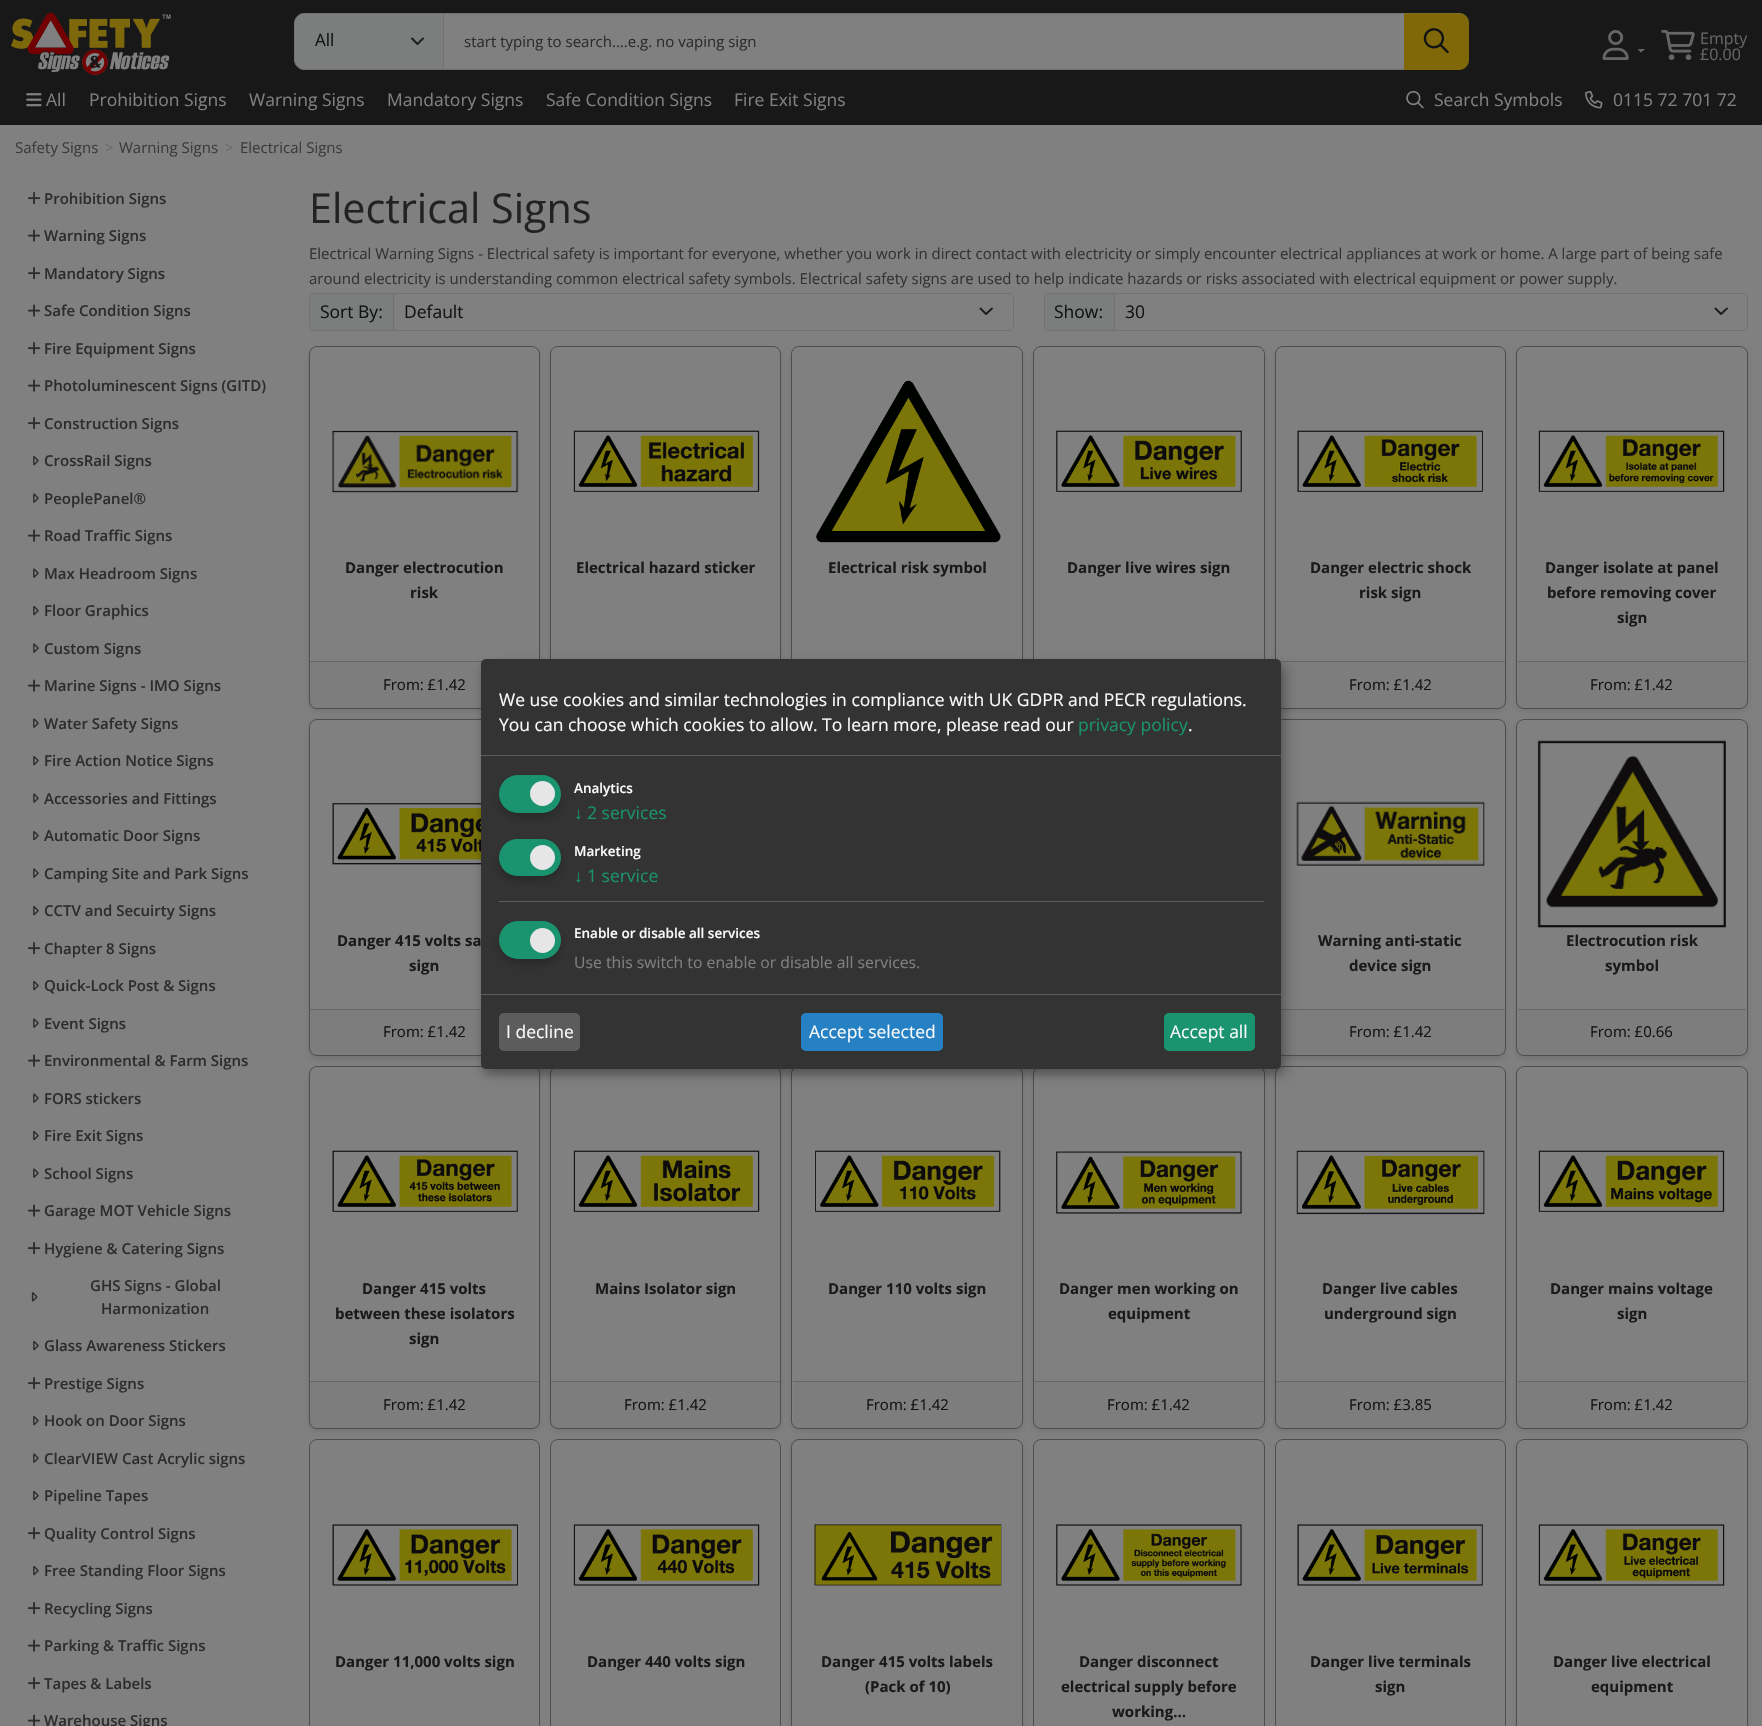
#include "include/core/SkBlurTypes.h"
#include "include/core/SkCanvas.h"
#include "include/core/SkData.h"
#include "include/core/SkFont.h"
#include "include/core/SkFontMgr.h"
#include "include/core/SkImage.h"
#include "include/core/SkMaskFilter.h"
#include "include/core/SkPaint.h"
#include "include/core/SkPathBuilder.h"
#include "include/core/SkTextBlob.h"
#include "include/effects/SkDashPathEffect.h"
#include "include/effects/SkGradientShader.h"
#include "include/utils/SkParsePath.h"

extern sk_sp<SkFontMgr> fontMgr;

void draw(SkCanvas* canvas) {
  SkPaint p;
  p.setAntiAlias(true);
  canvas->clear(SkColorSetRGB(128, 128, 128));
  p.setColor(SkColorSetRGB(24, 24, 24));
  canvas->drawRect(SkRect::MakeLTRB(0, 0, 1762, 125), p);
  canvas->drawImageRect(SkImages::DeferredFromEncodedData(SkData::MakeFromFileName("images/1.png")), SkRect::MakeLTRB(11, 13, 171, 75), SkSamplingOptions());
  p.setColor(SkColorSetRGB(124, 125, 125));
  canvas->drawPath(SkPathBuilder().moveTo(304, 13.5f).lineTo(443.5f, 13.5f).lineTo(443.5f, 69.5f).lineTo(304, 69.5f).cubicTo(299, 69.5f, 294.5f, 65, 294.5f, 60).lineTo(294.5f, 23).cubicTo(294.5f, 18, 299, 13.5f, 304, 13.5f).close().detach(), p);
  p.setStyle(SkPaint::kStroke_Style);
  p.setStrokeWidth(1);
  p.setColor(SkColorSetRGB(111, 113, 115));
  canvas->drawPath(SkPathBuilder().moveTo(304, 13.5f).lineTo(443.5f, 13.5f).lineTo(443.5f, 69.5f).lineTo(304, 69.5f).cubicTo(299, 69.5f, 294.5f, 65, 294.5f, 60).lineTo(294.5f, 23).cubicTo(294.5f, 18, 299, 13.5f, 304, 13.5f).close().detach(), p);
  p.setStrokeWidth(1.9f);
  p.setStrokeCap(SkPaint::kRound_Cap);
  p.setStrokeJoin(SkPaint::kRound_Join);
  p.setColor(SkColorSetRGB(26, 29, 32));
  canvas->drawPath(SkPathBuilder().moveTo(412, 38.5f).lineTo(417.5f, 44).lineTo(423, 38.5f).detach(), p);
  p.setStyle(SkPaint::kFill_Style);
  p.setColor(SkColorSetRGB(128, 128, 128));
  canvas->drawRect(SkRect::MakeLTRB(443.5f, 13.5f, 1404.5f, 69.5f), p);
  p.setStyle(SkPaint::kStroke_Style);
  p.setStrokeWidth(1);
  p.setStrokeCap(SkPaint::kButt_Cap);
  p.setStrokeJoin(SkPaint::kMiter_Join);
  p.setColor(SkColorSetRGB(111, 113, 115));
  canvas->drawRect(SkRect::MakeLTRB(443.5f, 13.5f, 1404.5f, 69.5f), p);
  p.setStyle(SkPaint::kFill_Style);
  p.setColor(SkColorSetRGB(128, 104, 9));
  canvas->drawPath(SkPathBuilder().moveTo(1404, 13).lineTo(1459, 13).cubicTo(1464.5f, 13, 1469, 17.5f, 1469, 23).lineTo(1469, 60).cubicTo(1469, 65.5f, 1464.5f, 70, 1459, 70).lineTo(1404, 70).close().detach(), p);
  p.setColor(SkColorSetARGB(51, 128, 128, 128));
  canvas->drawPath(SkPathBuilder().moveTo(1404, 14).lineTo(1459, 14).cubicTo(1464, 14, 1469, 18, 1469, 24).lineTo(1469, 23).cubicTo(1469, 17, 1465, 13, 1459, 13).lineTo(1404, 13).close().detach(), p);
  canvas->drawImageRect(SkImages::DeferredFromEncodedData(SkData::MakeFromFileName("images/2.png")), SkRect::MakeLTRB(1423, 28, 1449, 54), SkSamplingOptions());
  canvas->drawImageRect(SkImages::DeferredFromEncodedData(SkData::MakeFromFileName("images/3.png")), SkRect::MakeLTRB(1602, 30, 1629, 60), SkSamplingOptions());
  p.setColor(SkColorSetRGB(102, 102, 102));
  canvas->drawPath(SkPathBuilder().moveTo(1637.5f, 49).lineTo(1645, 49).lineTo(1641, 52.5f).close().detach(), p);
  canvas->drawImageRect(SkImages::DeferredFromEncodedData(SkData::MakeFromFileName("images/4.png")), SkRect::MakeLTRB(1661, 30, 1695, 60), SkSamplingOptions());
  canvas->drawImageRect(SkImages::DeferredFromEncodedData(SkData::MakeFromFileName("images/5.png")), SkRect::MakeLTRB(26, 93, 42, 107), SkSamplingOptions());
  canvas->drawImageRect(SkImages::DeferredFromEncodedData(SkData::MakeFromFileName("images/6.png")), SkRect::MakeLTRB(1406, 90, 1424, 109), SkSamplingOptions());
  canvas->drawImageRect(SkImages::DeferredFromEncodedData(SkData::MakeFromFileName("images/7.png")), SkRect::MakeLTRB(1585, 90, 1603, 109), SkSamplingOptions());
  canvas->drawImageRect(SkImages::DeferredFromEncodedData(SkData::MakeFromFileName("images/8.png")), SkRect::MakeLTRB(28, 192, 41, 205), SkSamplingOptions());
  canvas->drawImageRect(SkImages::DeferredFromEncodedData(SkData::MakeFromFileName("images/9.png")), SkRect::MakeLTRB(28, 229, 41, 242), SkSamplingOptions());
  canvas->drawImageRect(SkImages::DeferredFromEncodedData(SkData::MakeFromFileName("images/8.png")), SkRect::MakeLTRB(28, 267, 41, 280), SkSamplingOptions());
  canvas->drawImageRect(SkImages::DeferredFromEncodedData(SkData::MakeFromFileName("images/9.png")), SkRect::MakeLTRB(28, 304, 41, 317), SkSamplingOptions());
  canvas->drawImageRect(SkImages::DeferredFromEncodedData(SkData::MakeFromFileName("images/8.png")), SkRect::MakeLTRB(28, 342, 41, 355), SkSamplingOptions());
  canvas->drawImageRect(SkImages::DeferredFromEncodedData(SkData::MakeFromFileName("images/9.png")), SkRect::MakeLTRB(28, 379, 41, 392), SkSamplingOptions());
  canvas->drawImageRect(SkImages::DeferredFromEncodedData(SkData::MakeFromFileName("images/8.png")), SkRect::MakeLTRB(28, 417, 41, 430), SkSamplingOptions());
  canvas->drawImageRect(SkImages::DeferredFromEncodedData(SkData::MakeFromFileName("images/10.png")), SkRect::MakeLTRB(33, 456, 39, 466), SkSamplingOptions());
  canvas->drawImageRect(SkImages::DeferredFromEncodedData(SkData::MakeFromFileName("images/11.png")), SkRect::MakeLTRB(33, 493, 39, 503), SkSamplingOptions());
  canvas->drawImageRect(SkImages::DeferredFromEncodedData(SkData::MakeFromFileName("images/9.png")), SkRect::MakeLTRB(28, 529, 41, 542), SkSamplingOptions());
  canvas->drawImageRect(SkImages::DeferredFromEncodedData(SkData::MakeFromFileName("images/11.png")), SkRect::MakeLTRB(33, 568, 39, 578), SkSamplingOptions());
  canvas->drawImageRect(SkImages::DeferredFromEncodedData(SkData::MakeFromFileName("images/10.png")), SkRect::MakeLTRB(33, 606, 39, 616), SkSamplingOptions());
  canvas->drawImageRect(SkImages::DeferredFromEncodedData(SkData::MakeFromFileName("images/11.png")), SkRect::MakeLTRB(33, 643, 39, 653), SkSamplingOptions());
  canvas->drawImageRect(SkImages::DeferredFromEncodedData(SkData::MakeFromFileName("images/9.png")), SkRect::MakeLTRB(28, 679, 41, 692), SkSamplingOptions());
  canvas->drawImageRect(SkImages::DeferredFromEncodedData(SkData::MakeFromFileName("images/11.png")), SkRect::MakeLTRB(33, 718, 39, 728), SkSamplingOptions());
  canvas->drawImageRect(SkImages::DeferredFromEncodedData(SkData::MakeFromFileName("images/10.png")), SkRect::MakeLTRB(33, 756, 39, 766), SkSamplingOptions());
  canvas->drawImageRect(SkImages::DeferredFromEncodedData(SkData::MakeFromFileName("images/11.png")), SkRect::MakeLTRB(33, 793, 39, 803), SkSamplingOptions());
  canvas->drawImageRect(SkImages::DeferredFromEncodedData(SkData::MakeFromFileName("images/10.png")), SkRect::MakeLTRB(33, 831, 39, 841), SkSamplingOptions());
  canvas->drawImageRect(SkImages::DeferredFromEncodedData(SkData::MakeFromFileName("images/11.png")), SkRect::MakeLTRB(33, 868, 39, 878), SkSamplingOptions());
  canvas->drawImageRect(SkImages::DeferredFromEncodedData(SkData::MakeFromFileName("images/10.png")), SkRect::MakeLTRB(33, 906, 39, 916), SkSamplingOptions());
  canvas->drawImageRect(SkImages::DeferredFromEncodedData(SkData::MakeFromFileName("images/8.png")), SkRect::MakeLTRB(28, 942, 41, 955), SkSamplingOptions());
  canvas->drawImageRect(SkImages::DeferredFromEncodedData(SkData::MakeFromFileName("images/10.png")), SkRect::MakeLTRB(33, 981, 39, 991), SkSamplingOptions());
  canvas->drawImageRect(SkImages::DeferredFromEncodedData(SkData::MakeFromFileName("images/11.png")), SkRect::MakeLTRB(33, 1018, 39, 1028), SkSamplingOptions());
  canvas->drawImageRect(SkImages::DeferredFromEncodedData(SkData::MakeFromFileName("images/9.png")), SkRect::MakeLTRB(28, 1054, 41, 1067), SkSamplingOptions());
  canvas->drawImageRect(SkImages::DeferredFromEncodedData(SkData::MakeFromFileName("images/11.png")), SkRect::MakeLTRB(33, 1093, 39, 1103), SkSamplingOptions());
  canvas->drawImageRect(SkImages::DeferredFromEncodedData(SkData::MakeFromFileName("images/10.png")), SkRect::MakeLTRB(33, 1131, 39, 1141), SkSamplingOptions());
  canvas->drawImageRect(SkImages::DeferredFromEncodedData(SkData::MakeFromFileName("images/11.png")), SkRect::MakeLTRB(33, 1168, 39, 1178), SkSamplingOptions());
  canvas->drawImageRect(SkImages::DeferredFromEncodedData(SkData::MakeFromFileName("images/9.png")), SkRect::MakeLTRB(28, 1204, 41, 1217), SkSamplingOptions());
  canvas->drawImageRect(SkImages::DeferredFromEncodedData(SkData::MakeFromFileName("images/8.png")), SkRect::MakeLTRB(28, 1242, 41, 1255), SkSamplingOptions());
  canvas->drawImageRect(SkImages::DeferredFromEncodedData(SkData::MakeFromFileName("images/12.png")), SkRect::MakeLTRB(31, 1292, 38, 1302), SkSamplingOptions());
  canvas->drawImageRect(SkImages::DeferredFromEncodedData(SkData::MakeFromFileName("images/10.png")), SkRect::MakeLTRB(33, 1341, 39, 1351), SkSamplingOptions());
  canvas->drawImageRect(SkImages::DeferredFromEncodedData(SkData::MakeFromFileName("images/8.png")), SkRect::MakeLTRB(28, 1377, 41, 1390), SkSamplingOptions());
  canvas->drawImageRect(SkImages::DeferredFromEncodedData(SkData::MakeFromFileName("images/10.png")), SkRect::MakeLTRB(33, 1416, 39, 1426), SkSamplingOptions());
  canvas->drawImageRect(SkImages::DeferredFromEncodedData(SkData::MakeFromFileName("images/11.png")), SkRect::MakeLTRB(33, 1453, 39, 1463), SkSamplingOptions());
  canvas->drawImageRect(SkImages::DeferredFromEncodedData(SkData::MakeFromFileName("images/10.png")), SkRect::MakeLTRB(33, 1491, 39, 1501), SkSamplingOptions());
  canvas->drawImageRect(SkImages::DeferredFromEncodedData(SkData::MakeFromFileName("images/8.png")), SkRect::MakeLTRB(28, 1527, 41, 1540), SkSamplingOptions());
  canvas->drawImageRect(SkImages::DeferredFromEncodedData(SkData::MakeFromFileName("images/10.png")), SkRect::MakeLTRB(33, 1566, 39, 1576), SkSamplingOptions());
  canvas->drawImageRect(SkImages::DeferredFromEncodedData(SkData::MakeFromFileName("images/8.png")), SkRect::MakeLTRB(28, 1602, 41, 1615), SkSamplingOptions());
  canvas->drawImageRect(SkImages::DeferredFromEncodedData(SkData::MakeFromFileName("images/9.png")), SkRect::MakeLTRB(28, 1639, 41, 1652), SkSamplingOptions());
  canvas->drawImageRect(SkImages::DeferredFromEncodedData(SkData::MakeFromFileName("images/8.png")), SkRect::MakeLTRB(28, 1677, 41, 1690), SkSamplingOptions());
  canvas->drawImageRect(SkImages::DeferredFromEncodedData(SkData::MakeFromFileName("images/13.png")), SkRect::MakeLTRB(28, 1714, 41, 1726), SkSamplingOptions());
  p.setColor(SkColorSetRGB(124, 125, 125));
  canvas->drawPath(SkPathBuilder().moveTo(314, 293.5f).lineTo(393.5f, 293.5f).lineTo(393.5f, 330.5f).lineTo(314, 330.5f).cubicTo(311.5f, 330.5f, 309.5f, 328.5f, 309.5f, 326).lineTo(309.5f, 298).cubicTo(309.5f, 295.5f, 311.5f, 293.5f, 314, 293.5f).close().detach(), p);
  p.setStyle(SkPaint::kStroke_Style);
  p.setColor(SkColorSetRGB(111, 113, 115));
  canvas->drawPath(SkPathBuilder().moveTo(314, 293.5f).lineTo(393.5f, 293.5f).lineTo(393.5f, 330.5f).lineTo(314, 330.5f).cubicTo(311.5f, 330.5f, 309.5f, 328.5f, 309.5f, 326).lineTo(309.5f, 298).cubicTo(309.5f, 295.5f, 311.5f, 293.5f, 314, 293.5f).close().detach(), p);
  p.setStyle(SkPaint::kFill_Style);
  p.setColor(SkColorSetRGB(128, 128, 128));
  canvas->drawPath(SkPathBuilder().moveTo(393, 293).lineTo(1009, 293).cubicTo(1012, 293, 1014, 295, 1014, 298).lineTo(1014, 326).cubicTo(1014, 329, 1012, 331, 1009, 331).lineTo(393, 331).close().detach(), p);
  p.setStyle(SkPaint::kStroke_Style);
  p.setStrokeWidth(1.9f);
  p.setStrokeCap(SkPaint::kRound_Cap);
  p.setStrokeJoin(SkPaint::kRound_Join);
  p.setColor(SkColorSetRGB(26, 29, 32));
  canvas->drawPath(SkPathBuilder().moveTo(980.5f, 308.5f).lineTo(986, 314).lineTo(992, 308.5f).detach(), p);
  p.setStrokeWidth(1);
  p.setStrokeCap(SkPaint::kButt_Cap);
  p.setStrokeJoin(SkPaint::kMiter_Join);
  p.setColor(SkColorSetRGB(111, 113, 115));
  canvas->drawPath(SkPathBuilder().moveTo(393.5f, 293.5f).lineTo(1009, 293.5f).cubicTo(1011.5f, 293.5f, 1013.5f, 295.5f, 1013.5f, 298).lineTo(1013.5f, 326).cubicTo(1013.5f, 328.5f, 1011.5f, 330.5f, 1009, 330.5f).lineTo(393.5f, 330.5f).close().detach(), p);
  p.setStyle(SkPaint::kFill_Style);
  p.setColor(SkColorSetRGB(124, 125, 125));
  canvas->drawPath(SkPathBuilder().moveTo(1049, 293.5f).lineTo(1114.5f, 293.5f).lineTo(1114.5f, 330.5f).lineTo(1049, 330.5f).cubicTo(1046.5f, 330.5f, 1044.5f, 328.5f, 1044.5f, 326).lineTo(1044.5f, 298).cubicTo(1044.5f, 295.5f, 1046.5f, 293.5f, 1049, 293.5f).close().detach(), p);
  p.setStyle(SkPaint::kStroke_Style);
  p.setColor(SkColorSetRGB(111, 113, 115));
  canvas->drawPath(SkPathBuilder().moveTo(1049, 293.5f).lineTo(1114.5f, 293.5f).lineTo(1114.5f, 330.5f).lineTo(1049, 330.5f).cubicTo(1046.5f, 330.5f, 1044.5f, 328.5f, 1044.5f, 326).lineTo(1044.5f, 298).cubicTo(1044.5f, 295.5f, 1046.5f, 293.5f, 1049, 293.5f).close().detach(), p);
  p.setStyle(SkPaint::kFill_Style);
  p.setColor(SkColorSetRGB(128, 128, 128));
  canvas->drawPath(SkPathBuilder().moveTo(1114, 293).lineTo(1743, 293).cubicTo(1746, 293, 1748, 295, 1748, 298).lineTo(1748, 326).cubicTo(1748, 329, 1746, 331, 1743, 331).lineTo(1114, 331).close().detach(), p);
  p.setStyle(SkPaint::kStroke_Style);
  p.setStrokeWidth(1.9f);
  p.setStrokeCap(SkPaint::kRound_Cap);
  p.setStrokeJoin(SkPaint::kRound_Join);
  p.setColor(SkColorSetRGB(26, 29, 32));
  canvas->drawPath(SkPathBuilder().moveTo(1715.5f, 308.5f).lineTo(1721, 314).lineTo(1727, 308.5f).detach(), p);
  p.setStrokeWidth(1);
  p.setStrokeCap(SkPaint::kButt_Cap);
  p.setStrokeJoin(SkPaint::kMiter_Join);
  p.setColor(SkColorSetRGB(111, 113, 115));
  canvas->drawPath(SkPathBuilder().moveTo(1114.5f, 293.5f).lineTo(1743, 293.5f).cubicTo(1745.5f, 293.5f, 1747.5f, 295.5f, 1747.5f, 298).lineTo(1747.5f, 326).cubicTo(1747.5f, 328.5f, 1745.5f, 330.5f, 1743, 330.5f).lineTo(1114.5f, 330.5f).close().detach(), p);
  p.setStyle(SkPaint::kFill_Style);
  p.setColor(SkColorSetARGB(26, 0, 0, 0));
  p.setMaskFilter(SkMaskFilter::MakeBlur(kNormal_SkBlurStyle, 2.5f));
  canvas->drawRoundRect(SkRect::MakeLTRB(309, 349, 540, 711), 8, 8, p);
  p.setMaskFilter(nullptr);
  p.setColor(SkColorSetRGB(128, 128, 128));
  canvas->drawRoundRect(SkRect::MakeLTRB(309.5f, 346.5f, 539.5f, 708.5f), 7.5f, 7.5f, p);
  p.setStyle(SkPaint::kStroke_Style);
  p.setColor(SkColorSetRGB(79, 78, 76));
  canvas->drawRoundRect(SkRect::MakeLTRB(309.5f, 346.5f, 539.5f, 708.5f), 7.5f, 7.5f, p);
  canvas->drawImageRect(SkImages::DeferredFromEncodedData(SkData::MakeFromFileName("images/14.png")), SkRect::MakeLTRB(332, 430, 519, 493), SkSamplingOptions());
  p.setStyle(SkPaint::kFill_Style);
  p.setColor(SkColorSetARGB(8, 17, 19, 21));
  canvas->drawRect(SkRect::MakeLTRB(310, 662, 482, 708), p);
  p.setColor(SkColorSetRGB(103, 103, 103));
  canvas->drawRect(SkRect::MakeLTRB(310, 661, 482, 662), p);
  p.setColor(SkColorSetARGB(26, 0, 0, 0));
  p.setMaskFilter(SkMaskFilter::MakeBlur(kNormal_SkBlurStyle, 2.5f));
  canvas->drawRoundRect(SkRect::MakeLTRB(550, 349, 781, 711), 8, 8, p);
  p.setMaskFilter(nullptr);
  p.setColor(SkColorSetRGB(128, 128, 128));
  canvas->drawRoundRect(SkRect::MakeLTRB(550.5f, 346.5f, 780.5f, 708.5f), 7.5f, 7.5f, p);
  p.setStyle(SkPaint::kStroke_Style);
  p.setColor(SkColorSetRGB(79, 78, 76));
  canvas->drawRoundRect(SkRect::MakeLTRB(550.5f, 346.5f, 780.5f, 708.5f), 7.5f, 7.5f, p);
  canvas->drawImageRect(SkImages::DeferredFromEncodedData(SkData::MakeFromFileName("images/15.png")), SkRect::MakeLTRB(573, 430, 760, 492), SkSamplingOptions());
  p.setStyle(SkPaint::kFill_Style);
  p.setColor(SkColorSetARGB(26, 0, 0, 0));
  p.setMaskFilter(SkMaskFilter::MakeBlur(kNormal_SkBlurStyle, 2.5f));
  canvas->drawRoundRect(SkRect::MakeLTRB(791, 349, 1023, 711), 8, 8, p);
  p.setMaskFilter(nullptr);
  p.setColor(SkColorSetRGB(128, 128, 128));
  canvas->drawRoundRect(SkRect::MakeLTRB(791.5f, 346.5f, 1022.5f, 708.5f), 7.5f, 7.5f, p);
  p.setStyle(SkPaint::kStroke_Style);
  p.setColor(SkColorSetRGB(79, 78, 76));
  canvas->drawRoundRect(SkRect::MakeLTRB(791.5f, 346.5f, 1022.5f, 708.5f), 7.5f, 7.5f, p);
  canvas->drawImageRect(SkImages::DeferredFromEncodedData(SkData::MakeFromFileName("images/16.png")), SkRect::MakeLTRB(816, 380, 1001, 543), SkSamplingOptions());
  p.setStyle(SkPaint::kFill_Style);
  p.setColor(SkColorSetARGB(26, 0, 0, 0));
  p.setMaskFilter(SkMaskFilter::MakeBlur(kNormal_SkBlurStyle, 2.5f));
  canvas->drawRoundRect(SkRect::MakeLTRB(1033, 349, 1265, 711), 8, 8, p);
  p.setMaskFilter(nullptr);
  p.setColor(SkColorSetRGB(128, 128, 128));
  canvas->drawRoundRect(SkRect::MakeLTRB(1033.5f, 346.5f, 1264.5f, 708.5f), 7.5f, 7.5f, p);
  p.setStyle(SkPaint::kStroke_Style);
  p.setColor(SkColorSetRGB(79, 78, 76));
  canvas->drawRoundRect(SkRect::MakeLTRB(1033.5f, 346.5f, 1264.5f, 708.5f), 7.5f, 7.5f, p);
  canvas->drawImageRect(SkImages::DeferredFromEncodedData(SkData::MakeFromFileName("images/17.png")), SkRect::MakeLTRB(1056, 430, 1242, 492), SkSamplingOptions());
  p.setStyle(SkPaint::kFill_Style);
  p.setColor(SkColorSetARGB(26, 0, 0, 0));
  p.setMaskFilter(SkMaskFilter::MakeBlur(kNormal_SkBlurStyle, 2.5f));
  canvas->drawRoundRect(SkRect::MakeLTRB(1275, 349, 1506, 711), 8, 8, p);
  p.setMaskFilter(nullptr);
  p.setColor(SkColorSetRGB(128, 128, 128));
  canvas->drawRoundRect(SkRect::MakeLTRB(1275.5f, 346.5f, 1505.5f, 708.5f), 7.5f, 7.5f, p);
  p.setStyle(SkPaint::kStroke_Style);
  p.setColor(SkColorSetRGB(79, 78, 76));
  canvas->drawRoundRect(SkRect::MakeLTRB(1275.5f, 346.5f, 1505.5f, 708.5f), 7.5f, 7.5f, p);
  canvas->drawImageRect(SkImages::DeferredFromEncodedData(SkData::MakeFromFileName("images/18.png")), SkRect::MakeLTRB(1297, 430, 1483, 492), SkSamplingOptions());
  p.setStyle(SkPaint::kFill_Style);
  p.setColor(SkColorSetARGB(8, 17, 19, 21));
  canvas->drawRect(SkRect::MakeLTRB(1280, 662, 1505, 708), p);
  p.setColor(SkColorSetRGB(103, 103, 103));
  canvas->drawRect(SkRect::MakeLTRB(1276, 661, 1505, 662), p);
  p.setColor(SkColorSetARGB(26, 0, 0, 0));
  p.setMaskFilter(SkMaskFilter::MakeBlur(kNormal_SkBlurStyle, 2.5f));
  canvas->drawRoundRect(SkRect::MakeLTRB(1516, 349, 1748, 711), 8, 8, p);
  p.setMaskFilter(nullptr);
  p.setColor(SkColorSetRGB(128, 128, 128));
  canvas->drawRoundRect(SkRect::MakeLTRB(1516.5f, 346.5f, 1747.5f, 708.5f), 7.5f, 7.5f, p);
  p.setStyle(SkPaint::kStroke_Style);
  p.setColor(SkColorSetRGB(79, 78, 76));
  canvas->drawRoundRect(SkRect::MakeLTRB(1516.5f, 346.5f, 1747.5f, 708.5f), 7.5f, 7.5f, p);
  canvas->drawImageRect(SkImages::DeferredFromEncodedData(SkData::MakeFromFileName("images/19.png")), SkRect::MakeLTRB(1538, 430, 1725, 492), SkSamplingOptions());
  p.setStyle(SkPaint::kFill_Style);
  p.setColor(SkColorSetARGB(8, 17, 19, 21));
  canvas->drawRect(SkRect::MakeLTRB(1518, 662, 1746, 708), p);
  p.setColor(SkColorSetRGB(103, 103, 103));
  canvas->drawRect(SkRect::MakeLTRB(1518, 661, 1746, 662), p);
  p.setColor(SkColorSetARGB(26, 0, 0, 0));
  p.setMaskFilter(SkMaskFilter::MakeBlur(kNormal_SkBlurStyle, 2.5f));
  canvas->drawRoundRect(SkRect::MakeLTRB(309, 721, 540, 1059), 8, 8, p);
  p.setMaskFilter(nullptr);
  p.setColor(SkColorSetRGB(128, 128, 128));
  canvas->drawRoundRect(SkRect::MakeLTRB(309.5f, 719.5f, 539.5f, 1055.5f), 7.5f, 7.5f, p);
  p.setStyle(SkPaint::kStroke_Style);
  p.setColor(SkColorSetRGB(79, 78, 76));
  canvas->drawRoundRect(SkRect::MakeLTRB(309.5f, 719.5f, 539.5f, 1055.5f), 7.5f, 7.5f, p);
  canvas->drawImageRect(SkImages::DeferredFromEncodedData(SkData::MakeFromFileName("images/20.png")), SkRect::MakeLTRB(332, 803, 481, 865), SkSamplingOptions());
  p.setStyle(SkPaint::kFill_Style);
  p.setColor(SkColorSetARGB(8, 17, 19, 21));
  canvas->drawRect(SkRect::MakeLTRB(310, 1010, 481, 1055), p);
  p.setColor(SkColorSetRGB(103, 103, 103));
  canvas->drawRect(SkRect::MakeLTRB(310, 1009, 481, 1010), p);
  p.setColor(SkColorSetARGB(26, 0, 0, 0));
  p.setMaskFilter(SkMaskFilter::MakeBlur(kNormal_SkBlurStyle, 2.5f));
  canvas->drawRoundRect(SkRect::MakeLTRB(1275, 721, 1506, 1059), 8, 8, p);
  p.setMaskFilter(nullptr);
  p.setColor(SkColorSetRGB(128, 128, 128));
  canvas->drawRoundRect(SkRect::MakeLTRB(1275.5f, 719.5f, 1505.5f, 1055.5f), 7.5f, 7.5f, p);
  p.setStyle(SkPaint::kStroke_Style);
  p.setColor(SkColorSetRGB(79, 78, 76));
  canvas->drawRoundRect(SkRect::MakeLTRB(1275.5f, 719.5f, 1505.5f, 1055.5f), 7.5f, 7.5f, p);
  canvas->drawImageRect(SkImages::DeferredFromEncodedData(SkData::MakeFromFileName("images/21.png")), SkRect::MakeLTRB(1296, 801, 1485, 866), SkSamplingOptions());
  p.setStyle(SkPaint::kFill_Style);
  p.setColor(SkColorSetARGB(8, 17, 19, 21));
  canvas->drawRect(SkRect::MakeLTRB(1281, 1010, 1505, 1055), p);
  p.setColor(SkColorSetRGB(103, 103, 103));
  canvas->drawRect(SkRect::MakeLTRB(1276, 1009, 1505, 1010), p);
  p.setColor(SkColorSetARGB(26, 0, 0, 0));
  p.setMaskFilter(SkMaskFilter::MakeBlur(kNormal_SkBlurStyle, 2.5f));
  canvas->drawRoundRect(SkRect::MakeLTRB(1516, 721, 1748, 1059), 8, 8, p);
  p.setMaskFilter(nullptr);
  p.setColor(SkColorSetRGB(128, 128, 128));
  canvas->drawRoundRect(SkRect::MakeLTRB(1516.5f, 719.5f, 1747.5f, 1055.5f), 7.5f, 7.5f, p);
  p.setStyle(SkPaint::kStroke_Style);
  p.setColor(SkColorSetRGB(79, 78, 76));
  canvas->drawRoundRect(SkRect::MakeLTRB(1516.5f, 719.5f, 1747.5f, 1055.5f), 7.5f, 7.5f, p);
  canvas->drawImageRect(SkImages::DeferredFromEncodedData(SkData::MakeFromFileName("images/22.png")), SkRect::MakeLTRB(1537, 740, 1726, 928), SkSamplingOptions());
  p.setStyle(SkPaint::kFill_Style);
  p.setColor(SkColorSetARGB(8, 17, 19, 21));
  canvas->drawRect(SkRect::MakeLTRB(1518, 1010, 1746, 1055), p);
  p.setColor(SkColorSetRGB(103, 103, 103));
  canvas->drawRect(SkRect::MakeLTRB(1518, 1009, 1746, 1010), p);
  p.setColor(SkColorSetARGB(26, 0, 0, 0));
  p.setMaskFilter(SkMaskFilter::MakeBlur(kNormal_SkBlurStyle, 2.5f));
  canvas->drawRoundRect(SkRect::MakeLTRB(309, 1069, 540, 1431), 8, 8, p);
  p.setMaskFilter(nullptr);
  p.setColor(SkColorSetRGB(128, 128, 128));
  canvas->drawRoundRect(SkRect::MakeLTRB(309.5f, 1066.5f, 539.5f, 1428.5f), 7.5f, 7.5f, p);
  p.setStyle(SkPaint::kStroke_Style);
  p.setColor(SkColorSetRGB(79, 78, 76));
  canvas->drawRoundRect(SkRect::MakeLTRB(309.5f, 1066.5f, 539.5f, 1428.5f), 7.5f, 7.5f, p);
  canvas->drawImageRect(SkImages::DeferredFromEncodedData(SkData::MakeFromFileName("images/23.png")), SkRect::MakeLTRB(332, 1150, 518, 1212), SkSamplingOptions());
  p.setStyle(SkPaint::kFill_Style);
  p.setColor(SkColorSetARGB(8, 17, 19, 21));
  canvas->drawRect(SkRect::MakeLTRB(310, 1382, 539, 1428), p);
  p.setColor(SkColorSetRGB(103, 103, 103));
  canvas->drawRect(SkRect::MakeLTRB(310, 1381, 539, 1382), p);
  p.setColor(SkColorSetARGB(26, 0, 0, 0));
  p.setMaskFilter(SkMaskFilter::MakeBlur(kNormal_SkBlurStyle, 2.5f));
  canvas->drawRoundRect(SkRect::MakeLTRB(550, 1069, 781, 1431), 8, 8, p);
  p.setMaskFilter(nullptr);
  p.setColor(SkColorSetRGB(128, 128, 128));
  canvas->drawRoundRect(SkRect::MakeLTRB(550.5f, 1066.5f, 780.5f, 1428.5f), 7.5f, 7.5f, p);
  p.setStyle(SkPaint::kStroke_Style);
  p.setColor(SkColorSetRGB(79, 78, 76));
  canvas->drawRoundRect(SkRect::MakeLTRB(550.5f, 1066.5f, 780.5f, 1428.5f), 7.5f, 7.5f, p);
  canvas->drawImageRect(SkImages::DeferredFromEncodedData(SkData::MakeFromFileName("images/24.png")), SkRect::MakeLTRB(573, 1150, 760, 1212), SkSamplingOptions());
  p.setStyle(SkPaint::kFill_Style);
  p.setColor(SkColorSetARGB(8, 17, 19, 21));
  canvas->drawRect(SkRect::MakeLTRB(551, 1382, 780, 1428), p);
  p.setColor(SkColorSetRGB(103, 103, 103));
  canvas->drawRect(SkRect::MakeLTRB(551, 1381, 780, 1382), p);
  p.setColor(SkColorSetARGB(26, 0, 0, 0));
  p.setMaskFilter(SkMaskFilter::MakeBlur(kNormal_SkBlurStyle, 2.5f));
  canvas->drawRoundRect(SkRect::MakeLTRB(791, 1069, 1023, 1431), 8, 8, p);
  p.setMaskFilter(nullptr);
  p.setColor(SkColorSetRGB(128, 128, 128));
  canvas->drawRoundRect(SkRect::MakeLTRB(791.5f, 1066.5f, 1022.5f, 1428.5f), 7.5f, 7.5f, p);
  p.setStyle(SkPaint::kStroke_Style);
  p.setColor(SkColorSetRGB(79, 78, 76));
  canvas->drawRoundRect(SkRect::MakeLTRB(791.5f, 1066.5f, 1022.5f, 1428.5f), 7.5f, 7.5f, p);
  canvas->drawImageRect(SkImages::DeferredFromEncodedData(SkData::MakeFromFileName("images/25.png")), SkRect::MakeLTRB(815, 1150, 1001, 1212), SkSamplingOptions());
  p.setStyle(SkPaint::kFill_Style);
  p.setColor(SkColorSetARGB(8, 17, 19, 21));
  canvas->drawRect(SkRect::MakeLTRB(793, 1382, 1021, 1428), p);
  p.setColor(SkColorSetRGB(103, 103, 103));
  canvas->drawRect(SkRect::MakeLTRB(793, 1381, 1021, 1382), p);
  p.setColor(SkColorSetARGB(26, 0, 0, 0));
  p.setMaskFilter(SkMaskFilter::MakeBlur(kNormal_SkBlurStyle, 2.5f));
  canvas->drawRoundRect(SkRect::MakeLTRB(1033, 1069, 1265, 1431), 8, 8, p);
  p.setMaskFilter(nullptr);
  p.setColor(SkColorSetRGB(128, 128, 128));
  canvas->drawRoundRect(SkRect::MakeLTRB(1033.5f, 1066.5f, 1264.5f, 1428.5f), 7.5f, 7.5f, p);
  p.setStyle(SkPaint::kStroke_Style);
  p.setColor(SkColorSetRGB(79, 78, 76));
  canvas->drawRoundRect(SkRect::MakeLTRB(1033.5f, 1066.5f, 1264.5f, 1428.5f), 7.5f, 7.5f, p);
  canvas->drawImageRect(SkImages::DeferredFromEncodedData(SkData::MakeFromFileName("images/26.png")), SkRect::MakeLTRB(1056, 1151, 1242, 1214), SkSamplingOptions());
  p.setStyle(SkPaint::kFill_Style);
  p.setColor(SkColorSetARGB(8, 17, 19, 21));
  canvas->drawRect(SkRect::MakeLTRB(1034, 1382, 1264, 1428), p);
  p.setColor(SkColorSetRGB(103, 103, 103));
  canvas->drawRect(SkRect::MakeLTRB(1034, 1381, 1264, 1382), p);
  p.setColor(SkColorSetARGB(26, 0, 0, 0));
  p.setMaskFilter(SkMaskFilter::MakeBlur(kNormal_SkBlurStyle, 2.5f));
  canvas->drawRoundRect(SkRect::MakeLTRB(1275, 1069, 1506, 1431), 8, 8, p);
  p.setMaskFilter(nullptr);
  p.setColor(SkColorSetRGB(128, 128, 128));
  canvas->drawRoundRect(SkRect::MakeLTRB(1275.5f, 1066.5f, 1505.5f, 1428.5f), 7.5f, 7.5f, p);
  p.setStyle(SkPaint::kStroke_Style);
  p.setColor(SkColorSetRGB(79, 78, 76));
  canvas->drawRoundRect(SkRect::MakeLTRB(1275.5f, 1066.5f, 1505.5f, 1428.5f), 7.5f, 7.5f, p);
  canvas->drawImageRect(SkImages::DeferredFromEncodedData(SkData::MakeFromFileName("images/27.png")), SkRect::MakeLTRB(1296, 1150, 1485, 1215), SkSamplingOptions());
  p.setStyle(SkPaint::kFill_Style);
  p.setColor(SkColorSetARGB(8, 17, 19, 21));
  canvas->drawRect(SkRect::MakeLTRB(1276, 1382, 1505, 1428), p);
  p.setColor(SkColorSetRGB(103, 103, 103));
  canvas->drawRect(SkRect::MakeLTRB(1276, 1381, 1505, 1382), p);
  p.setColor(SkColorSetARGB(26, 0, 0, 0));
  p.setMaskFilter(SkMaskFilter::MakeBlur(kNormal_SkBlurStyle, 2.5f));
  canvas->drawRoundRect(SkRect::MakeLTRB(1516, 1069, 1748, 1431), 8, 8, p);
  p.setMaskFilter(nullptr);
  p.setColor(SkColorSetRGB(128, 128, 128));
  canvas->drawRoundRect(SkRect::MakeLTRB(1516.5f, 1066.5f, 1747.5f, 1428.5f), 7.5f, 7.5f, p);
  p.setStyle(SkPaint::kStroke_Style);
  p.setColor(SkColorSetRGB(79, 78, 76));
  canvas->drawRoundRect(SkRect::MakeLTRB(1516.5f, 1066.5f, 1747.5f, 1428.5f), 7.5f, 7.5f, p);
  canvas->drawImageRect(SkImages::DeferredFromEncodedData(SkData::MakeFromFileName("images/28.png")), SkRect::MakeLTRB(1538, 1150, 1725, 1212), SkSamplingOptions());
  p.setStyle(SkPaint::kFill_Style);
  p.setColor(SkColorSetARGB(8, 17, 19, 21));
  canvas->drawRect(SkRect::MakeLTRB(1518, 1382, 1746, 1428), p);
  p.setColor(SkColorSetRGB(103, 103, 103));
  canvas->drawRect(SkRect::MakeLTRB(1518, 1381, 1746, 1382), p);
  p.setStyle(SkPaint::kStroke_Style);
  p.setColor(SkColorSetRGB(79, 78, 76));
  canvas->drawRoundRect(SkRect::MakeLTRB(309.5f, 1439.5f, 539.5f, 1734.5f), 7.5f, 7.5f, p);
  canvas->drawImageRect(SkImages::DeferredFromEncodedData(SkData::MakeFromFileName("images/29.png")), SkRect::MakeLTRB(332, 1524, 518, 1586), SkSamplingOptions());
  canvas->drawRoundRect(SkRect::MakeLTRB(550.5f, 1439.5f, 780.5f, 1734.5f), 7.5f, 7.5f, p);
  canvas->drawImageRect(SkImages::DeferredFromEncodedData(SkData::MakeFromFileName("images/30.png")), SkRect::MakeLTRB(573, 1524, 760, 1586), SkSamplingOptions());
  p.setStyle(SkPaint::kFill_Style);
  p.setColor(SkColorSetARGB(26, 0, 0, 0));
  p.setMaskFilter(SkMaskFilter::MakeBlur(kNormal_SkBlurStyle, 2.5f));
  canvas->drawRoundRect(SkRect::MakeLTRB(791, 1441, 1023, 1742), 8, 8, p);
  p.setMaskFilter(nullptr);
  p.setColor(SkColorSetRGB(128, 128, 128));
  canvas->drawRoundRect(SkRect::MakeLTRB(791.5f, 1439.5f, 1022.5f, 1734.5f), 7.5f, 7.5f, p);
  p.setStyle(SkPaint::kStroke_Style);
  p.setColor(SkColorSetRGB(79, 78, 76));
  canvas->drawRoundRect(SkRect::MakeLTRB(791.5f, 1439.5f, 1022.5f, 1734.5f), 7.5f, 7.5f, p);
  canvas->drawImageRect(SkImages::DeferredFromEncodedData(SkData::MakeFromFileName("images/31.png")), SkRect::MakeLTRB(814, 1524, 1002, 1586), SkSamplingOptions());
  canvas->drawRoundRect(SkRect::MakeLTRB(1033.5f, 1439.5f, 1264.5f, 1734.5f), 7.5f, 7.5f, p);
  canvas->drawImageRect(SkImages::DeferredFromEncodedData(SkData::MakeFromFileName("images/32.png")), SkRect::MakeLTRB(1056, 1524, 1242, 1586), SkSamplingOptions());
  canvas->drawRoundRect(SkRect::MakeLTRB(1275.5f, 1439.5f, 1505.5f, 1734.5f), 7.5f, 7.5f, p);
  canvas->drawImageRect(SkImages::DeferredFromEncodedData(SkData::MakeFromFileName("images/33.png")), SkRect::MakeLTRB(1297, 1524, 1483, 1586), SkSamplingOptions());
  p.setStyle(SkPaint::kFill_Style);
  p.setColor(SkColorSetARGB(26, 0, 0, 0));
  p.setMaskFilter(SkMaskFilter::MakeBlur(kNormal_SkBlurStyle, 2.5f));
  canvas->drawRoundRect(SkRect::MakeLTRB(1516, 1441, 1748, 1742), 8, 8, p);
  p.setMaskFilter(nullptr);
  p.setColor(SkColorSetRGB(128, 128, 128));
  canvas->drawRoundRect(SkRect::MakeLTRB(1516.5f, 1439.5f, 1747.5f, 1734.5f), 7.5f, 7.5f, p);
  p.setStyle(SkPaint::kStroke_Style);
  p.setColor(SkColorSetRGB(79, 78, 76));
  canvas->drawRoundRect(SkRect::MakeLTRB(1516.5f, 1439.5f, 1747.5f, 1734.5f), 7.5f, 7.5f, p);
  canvas->drawImageRect(SkImages::DeferredFromEncodedData(SkData::MakeFromFileName("images/34.png")), SkRect::MakeLTRB(1538, 1524, 1725, 1586), SkSamplingOptions());
  p.setStyle(SkPaint::kFill_Style);
  p.setColor(SkColorSetARGB(48, 0, 0, 0));
  p.setMaskFilter(SkMaskFilter::MakeBlur(kNormal_SkBlurStyle, 6));
  canvas->drawRoundRect(SkRect::MakeLTRB(488, 665, 1288, 1075), 5, 5, p);
  p.setMaskFilter(nullptr);
  p.setColor(SkColorSetARGB(51, 0, 0, 0));
  p.setMaskFilter(SkMaskFilter::MakeBlur(kNormal_SkBlurStyle, 4));
  canvas->drawRoundRect(SkRect::MakeLTRB(481, 664, 1281, 1074), 5, 5, p);
  p.setMaskFilter(nullptr);
  p.setColor(SkColorSetRGB(51, 51, 51));
  canvas->drawRoundRect(SkRect::MakeLTRB(481, 659, 1281, 1069), 5, 5, p);
  p.setColor(SkColorSetRGB(92, 92, 92));
  canvas->drawRect(SkRect::MakeLTRB(481, 755, 1281, 756), p);
  p.setColor(SkColorSetARGB(51, 0, 0, 0));
  p.setMaskFilter(SkMaskFilter::MakeBlur(kNormal_SkBlurStyle, 4));
  canvas->drawRoundRect(SkRect::MakeLTRB(499, 780, 561, 818), 19, 19, p);
  p.setMaskFilter(nullptr);
  p.setColor(SkColorSetRGB(26, 147, 111));
  canvas->drawRoundRect(SkRect::MakeLTRB(499, 775, 561, 813), 19, 19, p);
  p.setColor(SkColorSetRGB(230, 230, 230));
  canvas->drawCircle(542.5f, 793.5f, 12.5f, p);
  p.setColor(SkColorSetARGB(51, 0, 0, 0));
  p.setMaskFilter(SkMaskFilter::MakeBlur(kNormal_SkBlurStyle, 4));
  canvas->drawRoundRect(SkRect::MakeLTRB(499, 844, 561, 881), 18.5f, 18.5f, p);
  p.setMaskFilter(nullptr);
  p.setColor(SkColorSetRGB(26, 147, 111));
  canvas->drawRoundRect(SkRect::MakeLTRB(499, 839, 561, 876), 18.5f, 18.5f, p);
  p.setColor(SkColorSetRGB(230, 230, 230));
  canvas->drawCircle(542.5f, 857.5f, 12.5f, p);
  p.setColor(SkColorSetRGB(92, 92, 92));
  canvas->drawRect(SkRect::MakeLTRB(499, 901, 1264, 902), p);
  p.setColor(SkColorSetARGB(51, 0, 0, 0));
  p.setMaskFilter(SkMaskFilter::MakeBlur(kNormal_SkBlurStyle, 4));
  canvas->drawRoundRect(SkRect::MakeLTRB(499, 926, 561, 964), 19, 19, p);
  p.setMaskFilter(nullptr);
  p.setColor(SkColorSetRGB(26, 147, 111));
  canvas->drawRoundRect(SkRect::MakeLTRB(499, 921, 561, 959), 19, 19, p);
  p.setColor(SkColorSetRGB(230, 230, 230));
  canvas->drawCircle(542.5f, 940.5f, 12.5f, p);
  p.setColor(SkColorSetRGB(92, 92, 92));
  canvas->drawRect(SkRect::MakeLTRB(481, 994, 1281, 995), p);
  canvas->drawRoundRect(SkRect::MakeLTRB(499, 1013, 580, 1051), 5, 5, p);
  p.setColor(SkColorSetRGB(37, 129, 196));
  canvas->drawRoundRect(SkRect::MakeLTRB(801, 1013, 943, 1051), 5, 5, p);
  p.setColor(SkColorSetRGB(26, 147, 111));
  canvas->drawRoundRect(SkRect::MakeLTRB(1164, 1013, 1255, 1051), 5, 5, p);
  SkFont font1(fontMgr->matchFamilyStyle("Open Sans", SkFontStyle::Normal()), 17);
  font1.setSubpixel(true);
  p.setColor(SkColorSetRGB(17, 19, 21));
  canvas->drawString("All", 315, 46, font1, p);
  SkFont font2(fontMgr->matchFamilyStyle("Open Sans", SkFontStyle::Normal()), 15);
  font2.setSubpixel(true);
  p.setColor(SkColorSetRGB(45, 45, 45));
  canvas->drawString("start typing to search....e.g. no vaping sign", 464, 47, font2, p);
  SkFont font3(fontMgr->matchFamilyStyle("Open Sans", SkFontStyle::Normal()), 16);
  font3.setSubpixel(true);
  p.setColor(SkColorSetRGB(102, 102, 102));
  canvas->drawString("Empty", 1700, 44, font3, p);
  canvas->drawString("£0.00", 1700, 60, font3, p);
  SkFont font4(fontMgr->matchFamilyStyle("Open Sans", SkFontStyle::Normal()), 17.5f);
  font4.setSubpixel(true);
  p.setColor(SkColorSetRGB(128, 128, 128));
  canvas->drawString("All", 46, 106, font4, p);
  canvas->drawString("Prohibition Signs", 89, 106, font4, p);
  canvas->drawString("Warning Signs", 249, 106, font4, p);
  canvas->drawString("Mandatory Signs", 387, 106, font4, p);
  canvas->drawString("Safe Condition Signs", 546, 106, font4, p);
  canvas->drawString("Fire Exit Signs", 734, 106, font4, p);
  canvas->drawString("Search Symbols", 1434, 106, font4, p);
  canvas->drawString("0115 72 701 72", 1613, 106, font4, p);
  p.setColor(SkColorSetRGB(60, 60, 60));
  canvas->drawString("Safety Signs", 15, 153, font2, p);
  p.setColor(SkColorSetRGB(102, 102, 102));
  canvas->drawString(">", 105, 153, font2, p);
  p.setColor(SkColorSetRGB(60, 60, 60));
  canvas->drawString("Warning Signs", 119, 153, font2, p);
  p.setColor(SkColorSetRGB(102, 102, 102));
  canvas->drawString(">", 225, 153, font2, p);
  p.setColor(SkColorSetRGB(60, 60, 60));
  canvas->drawString("Electrical Signs", 240, 153, font2, p);
  SkFont font5(fontMgr->matchFamilyStyle("Open Sans", SkFontStyle(600, SkFontStyle::kNormal_Width, SkFontStyle::kUpright_Slant)), 15);
  font5.setSubpixel(true);
  p.setColor(SkColorSetRGB(45, 45, 45));
  canvas->drawString("Prohibition Signs", 44, 204, font5, p);
  canvas->drawString("Warning Signs", 44, 241, font5, p);
  canvas->drawString("Mandatory Signs", 44, 279, font5, p);
  canvas->drawString("Safe Condition Signs", 44, 316, font5, p);
  canvas->drawString("Fire Equipment Signs", 44, 354, font5, p);
  canvas->drawString("Photoluminescent Signs (GITD)", 44, 391, font5, p);
  canvas->drawString("Construction Signs", 44, 429, font5, p);
  canvas->drawString("CrossRail Signs", 44, 466, font5, p);
  canvas->drawString("PeoplePanel®", 44, 504, font5, p);
  canvas->drawString("Road Traffic Signs", 44, 541, font5, p);
  canvas->drawString("Max Headroom Signs", 44, 579, font5, p);
  canvas->drawString("Floor Graphics", 44, 616, font5, p);
  canvas->drawString("Custom Signs", 44, 654, font5, p);
  canvas->drawString("Marine Signs - IMO Signs", 44, 691, font5, p);
  canvas->drawString("Water Safety Signs", 44, 729, font5, p);
  canvas->drawString("Fire Action Notice Signs", 44, 766, font5, p);
  canvas->drawString("Accessories and Fittings", 44, 804, font5, p);
  canvas->drawString("Automatic Door Signs", 44, 841, font5, p);
  canvas->drawString("Camping Site and Park Signs", 44, 879, font5, p);
  canvas->drawString("CCTV and Secuirty Signs", 44, 916, font5, p);
  canvas->drawString("Chapter 8 Signs", 44, 954, font5, p);
  canvas->drawString("Quick-Lock Post & Signs", 44, 991, font5, p);
  canvas->drawString("Event Signs", 44, 1029, font5, p);
  canvas->drawString("Environmental & Farm Signs", 44, 1066, font5, p);
  canvas->drawString("FORS stickers", 44, 1104, font5, p);
  canvas->drawString("Fire Exit Signs", 44, 1141, font5, p);
  canvas->drawString("School Signs", 44, 1179, font5, p);
  canvas->drawString("Garage MOT Vehicle Signs", 44, 1216, font5, p);
  canvas->drawString("Hygiene & Catering Signs", 44, 1254, font5, p);
  canvas->drawString("GHS Signs - Global", 90, 1291, font5, p);
  canvas->drawString("Harmonization", 101, 1314, font5, p);
  canvas->drawString("Glass Awareness Stickers", 44, 1351, font5, p);
  canvas->drawString("Prestige Signs", 44, 1389, font5, p);
  canvas->drawString("Hook on Door Signs", 44, 1426, font5, p);
  canvas->drawString("ClearVIEW Cast Acrylic signs", 44, 1464, font5, p);
  canvas->drawString("Pipeline Tapes", 44, 1501, font5, p);
  canvas->drawString("Quality Control Signs", 44, 1539, font5, p);
  canvas->drawString("Free Standing Floor Signs", 44, 1576, font5, p);
  canvas->drawString("Recycling Signs", 44, 1614, font5, p);
  canvas->drawString("Parking & Traffic Signs", 44, 1651, font5, p);
  canvas->drawString("Tapes & Labels", 44, 1689, font5, p);
  canvas->drawString("Warehouse Signs", 44, 1726, font5, p);
  SkFont font6(fontMgr->matchFamilyStyle("Open Sans", SkFontStyle::Normal()), 41.25f);
  font6.setSubpixel(true);
  p.setColor(SkColorSetRGB(34, 34, 34));
  canvas->drawString("Electrical Signs", 309, 223, font6, p);
  p.setColor(SkColorSetRGB(51, 51, 51));
  canvas->drawString("Electrical Warning Signs - Electrical safety is important for everyone, whether you work in direct contact with electricity or simply encounter electrical appliances at work or home. A large part of being safe", 309, 259, font2, p);
  canvas->drawString("around electricity is understanding common electrical safety symbols. Electrical safety signs are used to help indicate hazards or risks associated with electrical equipment or power supply.", 309, 284, font2, p);
  p.setColor(SkColorSetRGB(17, 19, 21));
  canvas->drawString("Sort By:", 320, 318, font4, p);
  canvas->drawString("Default", 404, 318, font4, p);
  canvas->drawString("Show:", 1054, 318, font4, p);
  canvas->drawString("30", 1125, 318, font4, p);
  SkFont font7(fontMgr->matchFamilyStyle("Open Sans", SkFontStyle::Bold()), 15);
  font7.setSubpixel(true);
  p.setColor(SkColorSetRGB(26, 26, 26));
  canvas->drawString("Danger electrocution", 345, 573, font7, p);
  canvas->drawString("risk", 410, 598, font7, p);
  p.setColor(SkColorSetRGB(17, 19, 21));
  canvas->drawString("From: £1.42", 383, 690, font2, p);
  p.setColor(SkColorSetRGB(26, 26, 26));
  canvas->drawString("Electrical hazard sticker", 576, 573, font7, p);
  canvas->drawString("Electrical risk symbol", 828, 573, font7, p);
  canvas->drawString("Danger live wires sign", 1067, 573, font7, p);
  canvas->drawString("Danger electric shock", 1310, 573, font7, p);
  canvas->drawString("risk sign", 1359, 598, font7, p);
  p.setColor(SkColorSetRGB(17, 19, 21));
  canvas->drawString("From: £1.42", 1349, 690, font2, p);
  p.setColor(SkColorSetRGB(26, 26, 26));
  canvas->drawString("Danger isolate at panel", 1545, 573, font7, p);
  canvas->drawString("before removing cover", 1547, 598, font7, p);
  canvas->drawString("sign", 1617, 623, font7, p);
  p.setColor(SkColorSetRGB(17, 19, 21));
  canvas->drawString("From: £1.42", 1590, 690, font2, p);
  p.setColor(SkColorSetRGB(26, 26, 26));
  canvas->drawString("Danger 415 volts sa", 337, 946, font7, p);
  canvas->drawString("sign", 409, 971, font7, p);
  p.setColor(SkColorSetRGB(17, 19, 21));
  canvas->drawString("From: £1.42", 383, 1037, font2, p);
  p.setColor(SkColorSetRGB(26, 26, 26));
  canvas->drawString("Warning anti-static", 1318, 946, font7, p);
  canvas->drawString("device sign", 1349, 971, font7, p);
  p.setColor(SkColorSetRGB(17, 19, 21));
  canvas->drawString("From: £1.42", 1349, 1037, font2, p);
  p.setColor(SkColorSetRGB(26, 26, 26));
  canvas->drawString("Electrocution risk", 1566, 946, font7, p);
  canvas->drawString("symbol", 1605, 971, font7, p);
  p.setColor(SkColorSetRGB(17, 19, 21));
  canvas->drawString("From: £0.66", 1590, 1037, font2, p);
  p.setColor(SkColorSetRGB(26, 26, 26));
  canvas->drawString("Danger 415 volts", 362, 1294, font7, p);
  canvas->drawString("between these isolators", 335, 1319, font7, p);
  canvas->drawString("sign", 409, 1344, font7, p);
  p.setColor(SkColorSetRGB(17, 19, 21));
  canvas->drawString("From: £1.42", 383, 1410, font2, p);
  p.setColor(SkColorSetRGB(26, 26, 26));
  canvas->drawString("Mains Isolator sign", 595, 1294, font7, p);
  p.setColor(SkColorSetRGB(17, 19, 21));
  canvas->drawString("From: £1.42", 624, 1410, font2, p);
  p.setColor(SkColorSetRGB(26, 26, 26));
  canvas->drawString("Danger 110 volts sign", 828, 1294, font7, p);
  p.setColor(SkColorSetRGB(17, 19, 21));
  canvas->drawString("From: £1.42", 866, 1410, font2, p);
  p.setColor(SkColorSetRGB(26, 26, 26));
  canvas->drawString("Danger men working on", 1059, 1294, font7, p);
  canvas->drawString("equipment", 1108, 1319, font7, p);
  p.setColor(SkColorSetRGB(17, 19, 21));
  canvas->drawString("From: £1.42", 1107, 1410, font2, p);
  p.setColor(SkColorSetRGB(26, 26, 26));
  canvas->drawString("Danger live cables", 1322, 1294, font7, p);
  canvas->drawString("underground sign", 1324, 1319, font7, p);
  p.setColor(SkColorSetRGB(17, 19, 21));
  canvas->drawString("From: £3.85", 1349, 1410, font2, p);
  p.setColor(SkColorSetRGB(26, 26, 26));
  canvas->drawString("Danger mains voltage", 1550, 1294, font7, p);
  canvas->drawString("sign", 1617, 1319, font7, p);
  p.setColor(SkColorSetRGB(17, 19, 21));
  canvas->drawString("From: £1.42", 1590, 1410, font2, p);
  p.setColor(SkColorSetRGB(26, 26, 26));
  canvas->drawString("Danger 11,000 volts sign", 335, 1667, font7, p);
  canvas->drawString("Danger 440 volts sign", 587, 1667, font7, p);
  canvas->drawString("Danger 415 volts labels", 821, 1667, font7, p);
  canvas->drawString("(Pack of 10)", 865, 1692, font7, p);
  canvas->drawString("Danger disconnect", 1079, 1667, font7, p);
  canvas->drawString("electrical supply before", 1061, 1692, font7, p);
  canvas->drawString("working…", 1112, 1717, font7, p);
  canvas->drawString("Danger live terminals", 1310, 1667, font7, p);
  canvas->drawString("sign", 1375, 1692, font7, p);
  canvas->drawString("Danger live electrical", 1553, 1667, font7, p);
  canvas->drawString("equipment", 1591, 1692, font7, p);
  p.setColor(SkColorSetRGB(250, 250, 250));
  canvas->drawString("We use cookies and similar technologies in compliance with UK GDPR and PECR regulations.", 499, 706, font4, p);
  canvas->drawString("You can choose which cookies to allow. To learn more, please read our", 499, 731, font4, p);
  p.setColor(SkColorSetRGB(26, 147, 111));
  canvas->drawString("privacy policy", 1078, 731, font4, p);
  p.setColor(SkColorSetRGB(250, 250, 250));
  canvas->drawString(".", 1188, 731, font4, p);
  SkFont font8(fontMgr->matchFamilyStyle("Open Sans", SkFontStyle(600, SkFontStyle::kNormal_Width, SkFontStyle::kUpright_Slant)), 13.5f);
  font8.setSubpixel(true);
  canvas->drawString("Analytics", 574, 793, font8, p);
  SkFont font9(fontMgr->matchFamilyStyle("Liberation Sans", SkFontStyle::Normal()), 17.5f);
  font9.setSubpixel(true);
  p.setColor(SkColorSetRGB(26, 147, 111));
  canvas->drawString("↓", 574, 819, font9, p);
  canvas->drawString("2 services", 587, 819, font4, p);
  p.setColor(SkColorSetRGB(250, 250, 250));
  canvas->drawString("Marketing", 574, 856, font8, p);
  p.setColor(SkColorSetRGB(26, 147, 111));
  canvas->drawString("↓", 574, 882, font9, p);
  canvas->drawString("1 service", 587, 882, font4, p);
  p.setColor(SkColorSetRGB(250, 250, 250));
  canvas->drawString("Enable or disable all services", 574, 938, font8, p);
  SkFont font10(fontMgr->matchFamilyStyle("Open Sans", SkFontStyle::Normal()), 15.75f);
  font10.setSubpixel(true);
  p.setColor(SkColorSetRGB(128, 128, 128));
  canvas->drawString("Use this switch to enable or disable all services.", 574, 968, font10, p);
  p.setColor(SkColorSetRGB(250, 250, 250));
  canvas->drawString("I decline", 506, 1038, font4, p);
  canvas->drawString("Accept selected", 809, 1038, font4, p);
  canvas->drawString("Accept all", 1170, 1038, font4, p);
}
